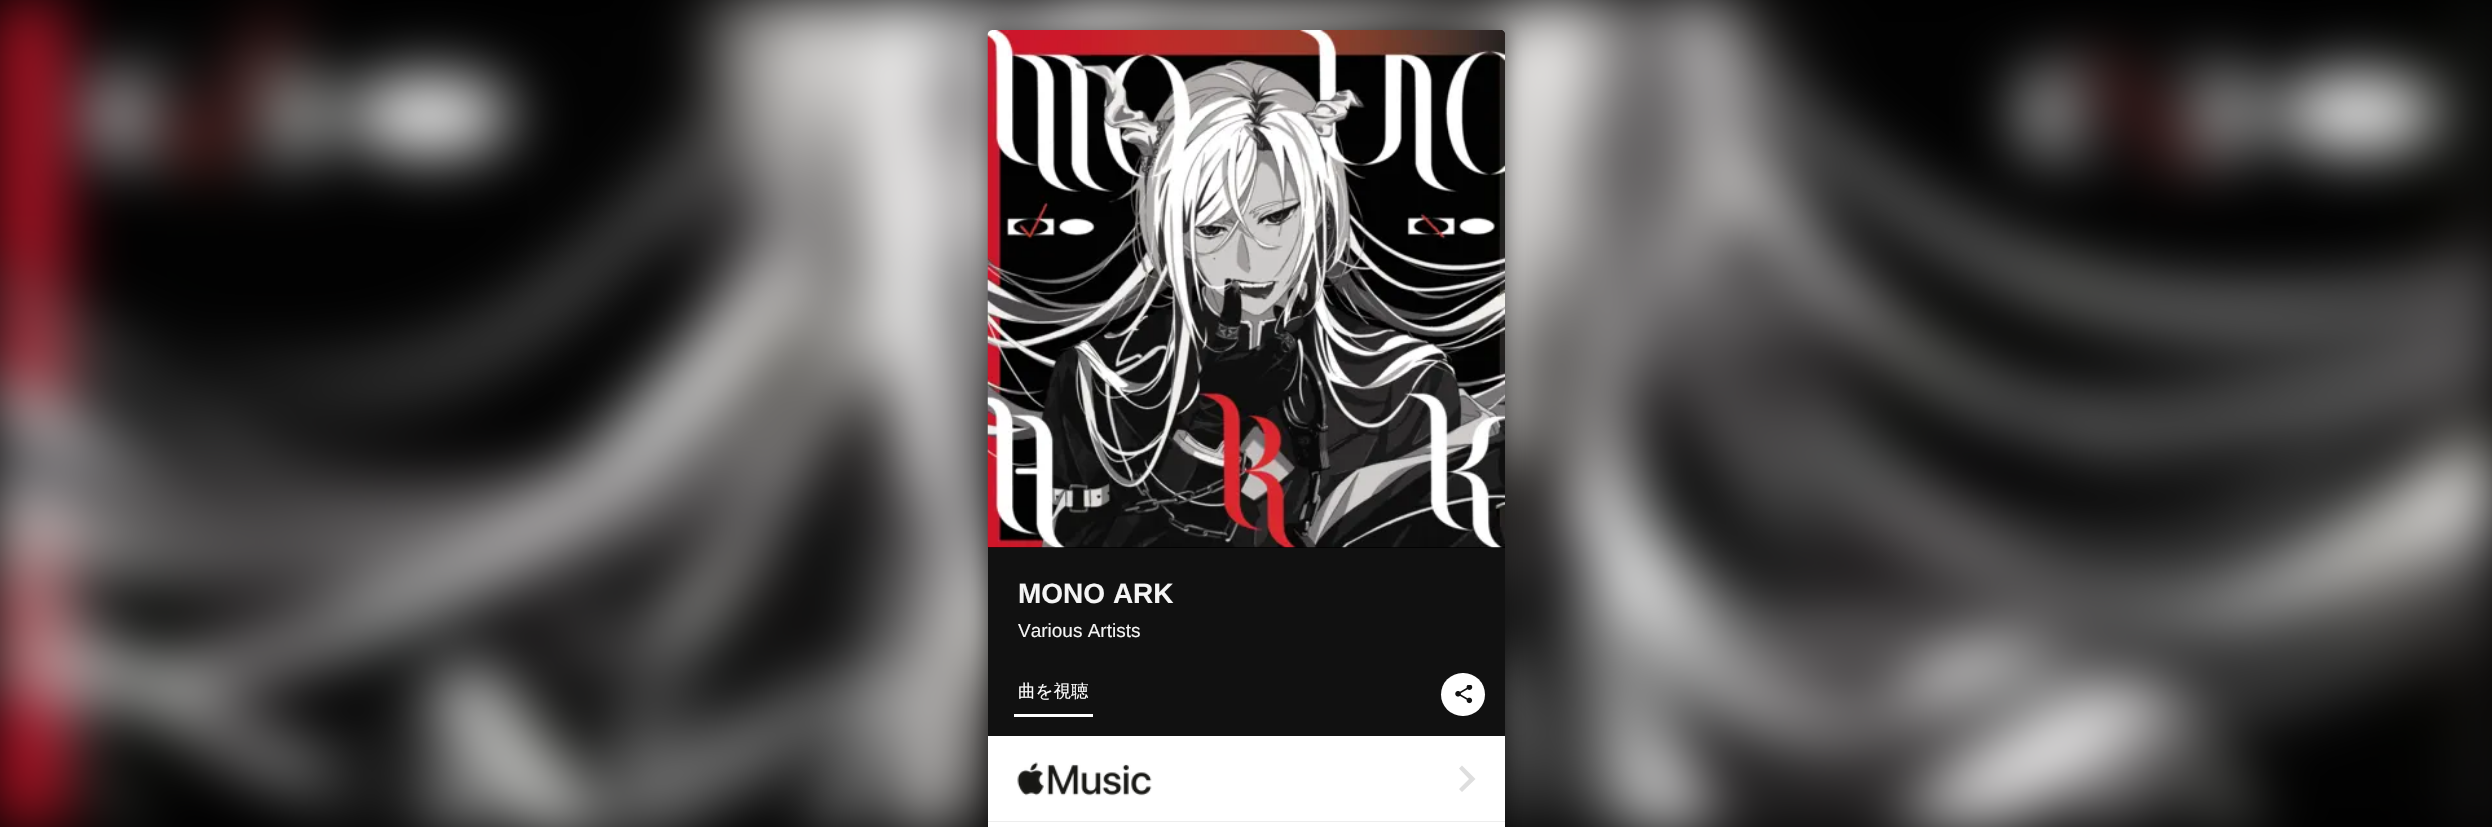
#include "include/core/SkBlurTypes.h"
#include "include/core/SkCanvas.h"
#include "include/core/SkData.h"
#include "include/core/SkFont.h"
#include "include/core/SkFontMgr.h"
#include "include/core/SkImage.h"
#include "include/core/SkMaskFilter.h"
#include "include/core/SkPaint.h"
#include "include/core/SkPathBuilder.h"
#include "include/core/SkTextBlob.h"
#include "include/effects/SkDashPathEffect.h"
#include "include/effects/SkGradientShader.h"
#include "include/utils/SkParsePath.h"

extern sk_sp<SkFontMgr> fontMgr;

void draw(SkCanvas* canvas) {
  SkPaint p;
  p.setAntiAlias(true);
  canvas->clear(SK_ColorBLACK);
  canvas->drawImageRect(SkImages::DeferredFromEncodedData(SkData::MakeFromFileName("images/1.png")), SkRect::MakeLTRB(0, 0, 2492, 827), SkSamplingOptions());
  p.setColor(SkColorSetARGB(120, 0, 0, 0));
  p.setMaskFilter(SkMaskFilter::MakeBlur(kNormal_SkBlurStyle, 10));
  canvas->drawRoundRect(SkRect::MakeLTRB(988, 30, 1505, 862), 5, 5, p);
  p.setMaskFilter(nullptr);
  p.setColor(SK_ColorBLACK);
  canvas->drawPath(SkPathBuilder().moveTo(993, 30).lineTo(1500, 30).cubicTo(1503, 30, 1505, 32, 1505, 35).lineTo(1505, 548).lineTo(988, 548).lineTo(988, 35).cubicTo(988, 32, 990, 30, 993, 30).close().detach(), p);
  canvas->drawImageRect(SkImages::DeferredFromEncodedData(SkData::MakeFromFileName("images/2.png")), SkRect::MakeLTRB(987, 30, 1505, 548), SkSamplingOptions());
  p.setColor(SkColorSetRGB(17, 17, 17));
  canvas->drawRect(SkRect::MakeLTRB(988, 548, 1505, 736), p);
  p.setColor(SK_ColorWHITE);
  canvas->drawRect(SkRect::MakeLTRB(1014, 714, 1093, 717), p);
  canvas->drawRoundRect(SkRect::MakeLTRB(1441, 673, 1485, 716), 21.5f, 21.5f, p);
  canvas->drawImageRect(SkImages::DeferredFromEncodedData(SkData::MakeFromFileName("images/3.png")), SkRect::MakeLTRB(1455, 685, 1473, 704), SkSamplingOptions());
  canvas->drawRect(SkRect::MakeLTRB(988, 736, 1505, 827), p);
  canvas->drawImageRect(SkImages::DeferredFromEncodedData(SkData::MakeFromFileName("images/4.png")), SkRect::MakeLTRB(1017, 762, 1152, 796), SkSamplingOptions());
  p.setColor(SkColorSetRGB(222, 222, 222));
  canvas->drawPath(SkPathBuilder().moveTo(1459, 789).lineTo(1469, 779).lineTo(1459, 768.5f).lineTo(1462, 765.5f).lineTo(1475.5f, 779).lineTo(1462, 792).close().detach(), p);
  p.setColor(SkColorSetRGB(237, 237, 237));
  canvas->drawRect(SkRect::MakeLTRB(988, 821, 1505, 822), p);
  SkFont font1(fontMgr->matchFamilyStyle("Liberation Sans", SkFontStyle::Bold()), 28);
  font1.setSubpixel(true);
  p.setColor(SkColorSetRGB(245, 245, 245));
  canvas->drawString("MONO ARK", 1018, 603, font1, p);
  SkFont font2(fontMgr->matchFamilyStyle("Liberation Sans", SkFontStyle::Normal()), 19);
  font2.setSubpixel(true);
  canvas->drawString("Various Artists", 1018, 637, font2, p);
  SkFont font3(fontMgr->matchFamilyStyle("WenQuanYi Zen Hei", SkFontStyle(500, SkFontStyle::kNormal_Width, SkFontStyle::kUpright_Slant)), 17.5f);
  font3.setSubpixel(true);
  p.setColor(SK_ColorWHITE);
  canvas->drawString("曲を視聴", 1018, 697, font3, p);
}
